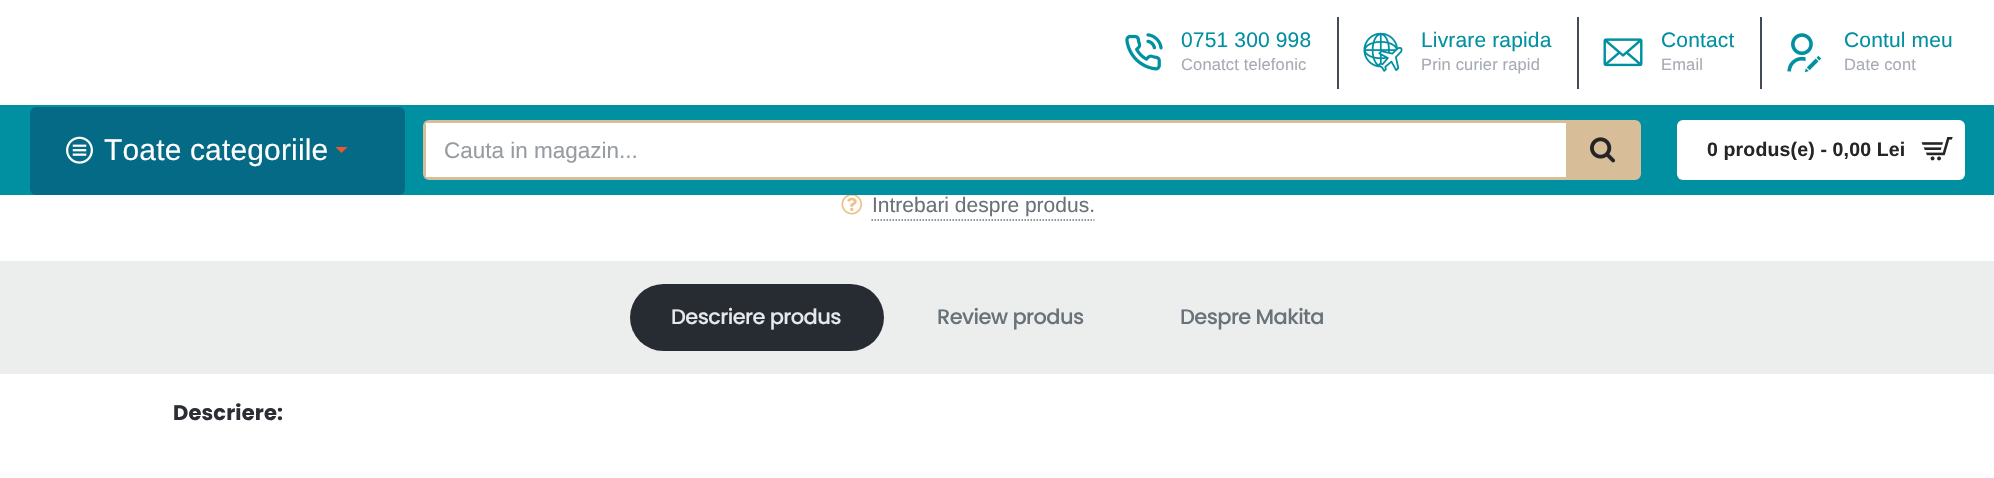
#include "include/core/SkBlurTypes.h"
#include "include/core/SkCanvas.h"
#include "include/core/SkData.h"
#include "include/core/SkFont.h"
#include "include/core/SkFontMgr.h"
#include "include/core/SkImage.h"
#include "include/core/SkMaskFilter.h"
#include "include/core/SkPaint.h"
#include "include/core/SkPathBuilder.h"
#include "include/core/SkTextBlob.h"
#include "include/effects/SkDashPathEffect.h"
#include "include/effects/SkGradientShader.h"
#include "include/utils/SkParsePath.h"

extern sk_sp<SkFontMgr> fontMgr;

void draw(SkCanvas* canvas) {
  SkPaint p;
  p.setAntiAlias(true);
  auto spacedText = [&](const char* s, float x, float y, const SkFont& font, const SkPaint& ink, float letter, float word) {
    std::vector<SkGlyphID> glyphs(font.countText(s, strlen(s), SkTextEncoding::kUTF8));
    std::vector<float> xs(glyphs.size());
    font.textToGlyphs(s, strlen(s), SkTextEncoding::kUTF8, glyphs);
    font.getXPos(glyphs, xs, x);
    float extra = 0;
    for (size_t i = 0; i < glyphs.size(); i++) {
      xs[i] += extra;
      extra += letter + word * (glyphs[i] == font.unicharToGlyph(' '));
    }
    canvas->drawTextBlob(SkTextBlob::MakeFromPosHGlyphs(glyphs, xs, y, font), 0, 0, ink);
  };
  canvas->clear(SK_ColorWHITE);
  canvas->drawImageRect(SkImages::DeferredFromEncodedData(SkData::MakeFromFileName("images/1.png")), SkRect::MakeLTRB(1125, 33, 1163, 71), SkSamplingOptions());
  p.setColor(SkColorSetRGB(66, 74, 87));
  canvas->drawRect(SkRect::MakeLTRB(1337, 17, 1339, 89), p);
  canvas->drawImageRect(SkImages::DeferredFromEncodedData(SkData::MakeFromFileName("images/2.png")), SkRect::MakeLTRB(1363, 32, 1403, 72), SkSamplingOptions());
  canvas->drawRect(SkRect::MakeLTRB(1577, 17, 1579, 89), p);
  canvas->drawImageRect(SkImages::DeferredFromEncodedData(SkData::MakeFromFileName("images/3.png")), SkRect::MakeLTRB(1603, 38, 1643, 67), SkSamplingOptions());
  canvas->drawRect(SkRect::MakeLTRB(1760, 17, 1762, 89), p);
  canvas->drawImageRect(SkImages::DeferredFromEncodedData(SkData::MakeFromFileName("images/4.png")), SkRect::MakeLTRB(1787, 33, 1822, 73), SkSamplingOptions());
  p.setColor(SkColorSetRGB(0, 144, 161));
  canvas->drawRect(SkRect::MakeLTRB(0, 105, 1994, 195), p);
  p.setColor(SkColorSetRGB(4, 106, 133));
  canvas->drawRoundRect(SkRect::MakeLTRB(30, 107, 405, 195), 6, 6, p);
  canvas->drawImageRect(SkImages::DeferredFromEncodedData(SkData::MakeFromFileName("images/5.png")), SkRect::MakeLTRB(66, 136, 93, 164), SkSamplingOptions());
  p.setColor(SkColorSetRGB(238, 87, 45));
  canvas->drawPath(SkPathBuilder().moveTo(335.5f, 147).lineTo(347.5f, 147).lineTo(341.5f, 153).close().detach(), p);
  p.setStyle(SkPaint::kStroke_Style);
  p.setStrokeWidth(3);
  p.setColor(SkColorSetRGB(215, 190, 153));
  canvas->drawRoundRect(SkRect::MakeLTRB(424.5f, 121.5f, 1639.5f, 178.5f), 4.5f, 4.5f, p);
  p.setStyle(SkPaint::kFill_Style);
  p.setColor(SK_ColorWHITE);
  canvas->drawRect(SkRect::MakeLTRB(426, 123, 1566, 177), p);
  p.setColor(SkColorSetRGB(215, 190, 153));
  canvas->drawRect(SkRect::MakeLTRB(1566, 123, 1638, 177), p);
  canvas->drawImageRect(SkImages::DeferredFromEncodedData(SkData::MakeFromFileName("images/6.png")), SkRect::MakeLTRB(1590, 137, 1616, 163), SkSamplingOptions());
  p.setColor(SK_ColorWHITE);
  canvas->drawRoundRect(SkRect::MakeLTRB(1677, 120, 1965, 180), 6, 6, p);
  canvas->drawImageRect(SkImages::DeferredFromEncodedData(SkData::MakeFromFileName("images/7.png")), SkRect::MakeLTRB(1921, 137, 1953, 161), SkSamplingOptions());
  canvas->drawImageRect(SkImages::DeferredFromEncodedData(SkData::MakeFromFileName("images/8.png")), SkRect::MakeLTRB(841, 195, 863, 215), SkSamplingOptions());
  p.setStyle(SkPaint::kStroke_Style);
  p.setStrokeWidth(1.5f);
  p.setColor(SkColorSetRGB(105, 114, 120));
  p.setPathEffect(SkDashPathEffect::Make({{1.5f, 1.5f}}, 0));
  canvas->drawPath(SkPathBuilder().moveTo(871.5f, 220).lineTo(1094.5f, 220).detach(), p);
  p.setPathEffect(nullptr);
  p.setStyle(SkPaint::kFill_Style);
  p.setColor(SkColorSetRGB(236, 238, 238));
  canvas->drawRect(SkRect::MakeLTRB(0, 261, 1994, 374), p);
  p.setColor(SkColorSetRGB(39, 44, 50));
  canvas->drawRoundRect(SkRect::MakeLTRB(630, 284, 884, 351), 33.5f, 33.5f, p);
  SkFont font1(fontMgr->matchFamilyStyle("Liberation Sans", SkFontStyle::Normal()), 21);
  font1.setSubpixel(true);
  p.setColor(SkColorSetRGB(0, 144, 161));
  spacedText("0751 300 998", 1181, 47, font1, p, 0.15f, 0);
  SkFont font2(fontMgr->matchFamilyStyle("Liberation Sans", SkFontStyle::Normal()), 16.5f);
  font2.setSubpixel(true);
  p.setColor(SkColorSetRGB(167, 171, 180));
  spacedText("Conatct telefonic", 1181, 70, font2, p, 0.15f, 0);
  p.setColor(SkColorSetRGB(0, 144, 161));
  spacedText("Livrare rapida", 1421, 47, font1, p, 0.15f, 0);
  p.setColor(SkColorSetRGB(167, 171, 180));
  spacedText("Prin curier rapid", 1421, 70, font2, p, 0.15f, 0);
  canvas->save();
  canvas->clipRect(SkRect::MakeLTRB(1661, 29, 1734, 77));
  p.setColor(SkColorSetRGB(0, 144, 161));
  spacedText("Contact", 1661, 47, font1, p, 0.15f, 0);
  canvas->restore();
  p.setColor(SkColorSetRGB(167, 171, 180));
  spacedText("Email", 1661, 70, font2, p, 0.15f, 0);
  p.setColor(SkColorSetRGB(0, 144, 161));
  spacedText("Contul meu", 1844, 47, font1, p, 0.15f, 0);
  p.setColor(SkColorSetRGB(167, 171, 180));
  spacedText("Date cont", 1844, 70, font2, p, 0.15f, 0);
  SkFont font3(fontMgr->matchFamilyStyle("Liberation Sans", SkFontStyle::Normal()), 30);
  font3.setSubpixel(true);
  p.setColor(SK_ColorWHITE);
  spacedText("Toate categoriile", 104, 160, font3, p, 0.15f, 0);
  SkFont font4(fontMgr->matchFamilyStyle("Liberation Sans", SkFontStyle::Normal()), 22.5f);
  font4.setSubpixel(true);
  p.setColor(SkColorSetRGB(150, 156, 161));
  canvas->drawString("Cauta in magazin...", 444, 158, font4, p);
  SkFont font5(fontMgr->matchFamilyStyle("Liberation Sans", SkFontStyle::Bold()), 19.5f);
  font5.setSubpixel(true);
  p.setColor(SkColorSetRGB(37, 37, 37));
  spacedText("0 produs(e) - 0,00 Lei", 1707, 156, font5, p, 0.15f, 0);
  p.setColor(SkColorSetRGB(105, 114, 120));
  canvas->drawString("Intrebari despre produs.", 872, 212, font1, p);
  SkFont font6(fontMgr->matchFamilyStyle("Poppins", SkFontStyle(500, SkFontStyle::kNormal_Width, SkFontStyle::kUpright_Slant)), 21);
  font6.setSubpixel(true);
  p.setColor(SkColorSetRGB(230, 232, 235));
  spacedText("Descriere produs", 671, 324, font6, p, -0.6f, 0);
  p.setColor(SkColorSetRGB(105, 114, 120));
  spacedText("Review produs", 937, 324, font6, p, -0.6f, 0);
  spacedText("Despre Makita", 1180, 324, font6, p, -0.6f, 0);
  SkFont font7(fontMgr->matchFamilyStyle("Poppins", SkFontStyle::Bold()), 21);
  font7.setSubpixel(true);
  p.setColor(SkColorSetRGB(44, 46, 53));
  spacedText("Descriere:", 173, 420, font7, p, 0.15f, 0);
}
